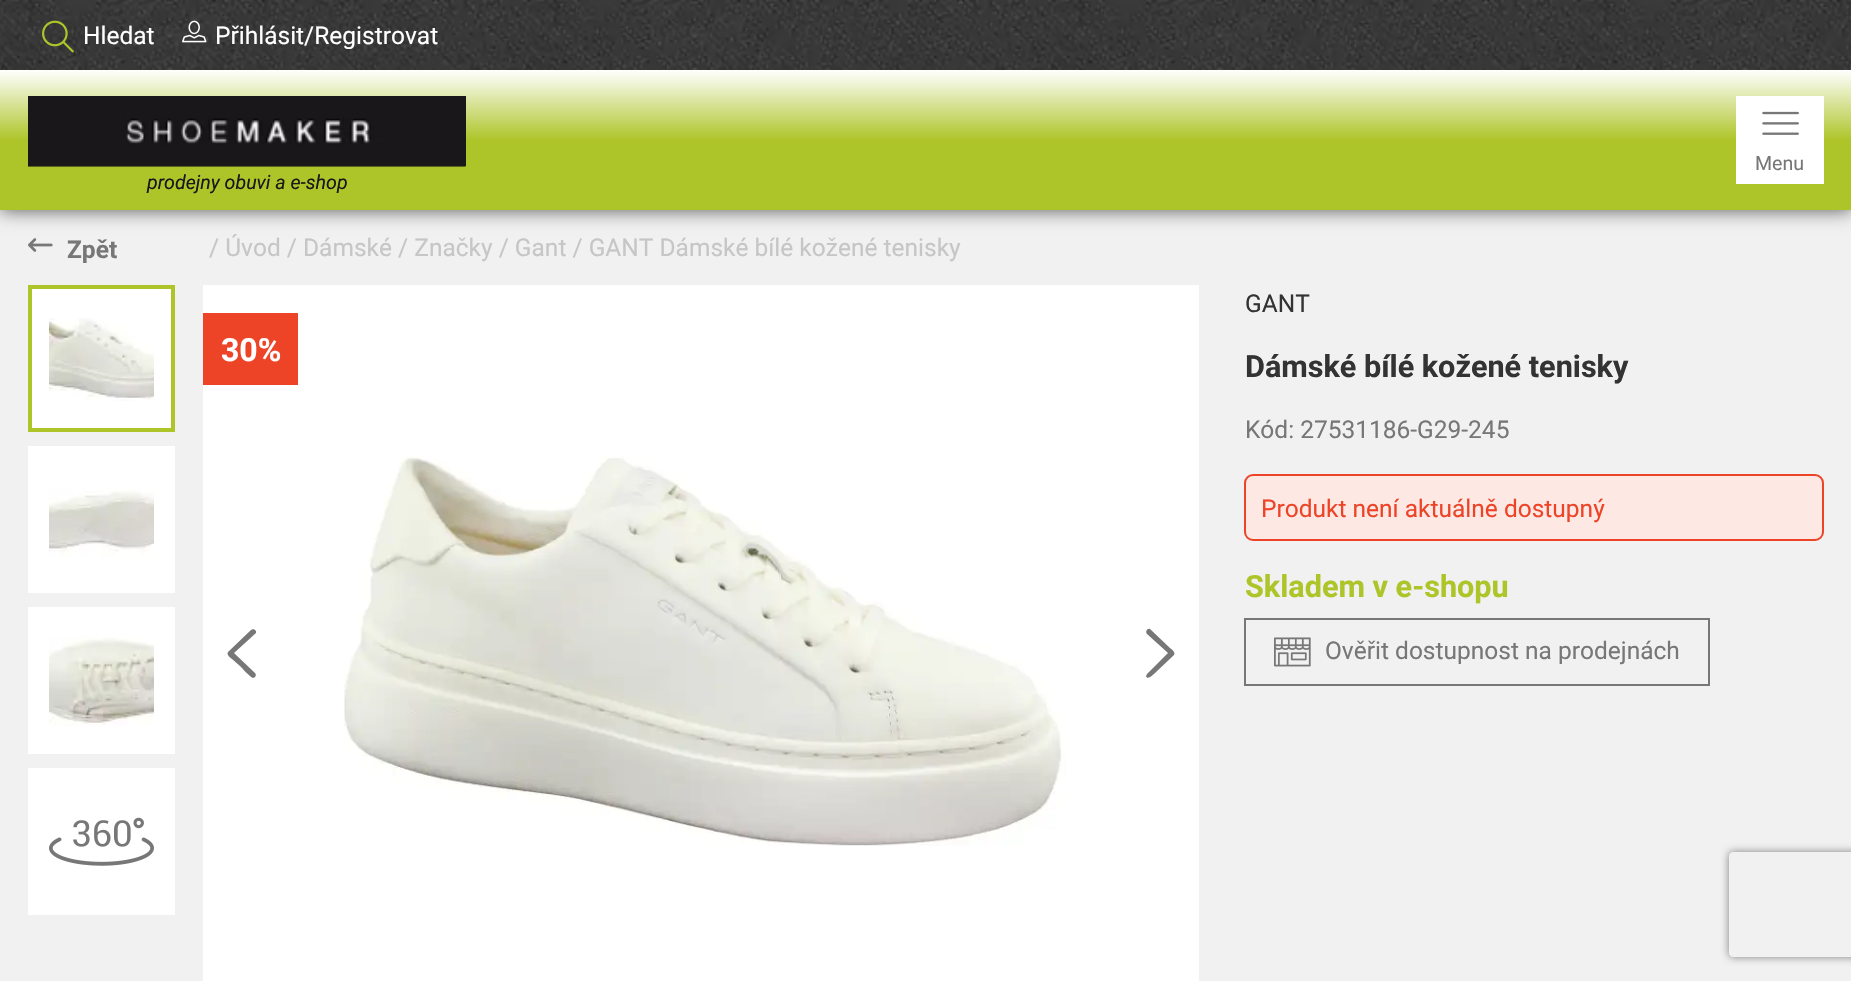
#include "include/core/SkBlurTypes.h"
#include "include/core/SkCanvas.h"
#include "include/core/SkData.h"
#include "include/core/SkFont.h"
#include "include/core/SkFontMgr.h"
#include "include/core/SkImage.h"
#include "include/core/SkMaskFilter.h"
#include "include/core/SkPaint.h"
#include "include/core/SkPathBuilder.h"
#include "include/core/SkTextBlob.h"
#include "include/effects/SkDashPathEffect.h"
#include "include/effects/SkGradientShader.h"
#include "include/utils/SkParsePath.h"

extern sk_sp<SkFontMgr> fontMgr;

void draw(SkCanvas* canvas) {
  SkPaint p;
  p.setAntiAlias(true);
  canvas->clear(SkColorSetRGB(241, 241, 241));
  p.setColor(SkColorSetRGB(83, 83, 83));
  p.setMaskFilter(SkMaskFilter::MakeBlur(kNormal_SkBlurStyle, 9));
  canvas->drawRect(SkRect::MakeLTRB(0, 70, 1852, 210), p);
  p.setMaskFilter(nullptr);
  canvas->drawImageRect(SkImages::DeferredFromEncodedData(SkData::MakeFromFileName("images/1.png")), SkRect::MakeLTRB(0, 0, 1851, 70), SkSamplingOptions());
  canvas->drawImageRect(SkImages::DeferredFromEncodedData(SkData::MakeFromFileName("images/2.png")), SkRect::MakeLTRB(42, 20, 74, 53), SkSamplingOptions());
  canvas->drawImageRect(SkImages::DeferredFromEncodedData(SkData::MakeFromFileName("images/3.png")), SkRect::MakeLTRB(182, 20, 207, 43), SkSamplingOptions());
  {
    const SkColor colors[] = {SK_ColorWHITE, SkColorSetRGB(174, 197, 41), SkColorSetRGB(174, 197, 41)};
    const float stops[] = {0, 0.5f, 1};
    const SkPoint ends[] = {{926, 70}, {926, 210}};
    p.setShader(SkGradientShader::MakeLinear(ends, colors, stops, 3, SkTileMode::kClamp));
    p.setAlpha(255);
  }
  canvas->drawRect(SkRect::MakeLTRB(0, 70, 1851, 210), p);
  p.setShader(nullptr);
  p.setColor(SK_ColorWHITE);
  canvas->drawRect(SkRect::MakeLTRB(1736, 96, 1824, 184), p);
  canvas->drawImageRect(SkImages::DeferredFromEncodedData(SkData::MakeFromFileName("images/4.png")), SkRect::MakeLTRB(1762, 111, 1799, 135), SkSamplingOptions());
  p.setColor(SkColorSetRGB(26, 23, 27));
  canvas->drawRect(SkRect::MakeLTRB(28, 96, 466, 166), p);
  canvas->drawImageRect(SkImages::DeferredFromEncodedData(SkData::MakeFromFileName("images/5.png")), SkRect::MakeLTRB(28, 118, 466, 167), SkSamplingOptions());
  canvas->drawImageRect(SkImages::DeferredFromEncodedData(SkData::MakeFromFileName("images/6.png")), SkRect::MakeLTRB(28, 238, 53, 252), SkSamplingOptions());
  p.setColor(SK_ColorWHITE);
  canvas->drawRect(SkRect::MakeLTRB(30, 287, 173, 430), p);
  p.setStyle(SkPaint::kStroke_Style);
  p.setStrokeWidth(4);
  p.setColor(SkColorSetRGB(174, 197, 41));
  canvas->drawRect(SkRect::MakeLTRB(30, 287, 173, 430), p);
  canvas->drawImageRect(SkImages::DeferredFromEncodedData(SkData::MakeFromFileName("images/7.png")), SkRect::MakeLTRB(49, 318, 154, 401), SkSamplingOptions());
  p.setStyle(SkPaint::kFill_Style);
  p.setColor(SK_ColorWHITE);
  canvas->drawRect(SkRect::MakeLTRB(28, 446, 175, 593), p);
  canvas->drawImageRect(SkImages::DeferredFromEncodedData(SkData::MakeFromFileName("images/8.png")), SkRect::MakeLTRB(49, 489, 154, 557), SkSamplingOptions());
  canvas->drawRect(SkRect::MakeLTRB(28, 607, 175, 754), p);
  canvas->drawImageRect(SkImages::DeferredFromEncodedData(SkData::MakeFromFileName("images/9.png")), SkRect::MakeLTRB(49, 637, 154, 726), SkSamplingOptions());
  canvas->drawRect(SkRect::MakeLTRB(28, 768, 175, 915), p);
  canvas->drawImageRect(SkImages::DeferredFromEncodedData(SkData::MakeFromFileName("images/10.png")), SkRect::MakeLTRB(49, 817, 154, 866), SkSamplingOptions());
  canvas->drawRect(SkRect::MakeLTRB(203, 285, 1199, 981), p);
  p.setColor(SkColorSetRGB(237, 68, 40));
  canvas->drawRect(SkRect::MakeLTRB(203, 313, 298, 385), p);
  p.setColor(SkColorSetRGB(119, 119, 119));
  canvas->drawPath(SkPathBuilder().moveTo(255, 673).cubicTo(257, 675, 255, 678, 253, 678).cubicTo(250, 677, 242, 668, 240, 666).lineTo(232, 659).cubicTo(231, 658, 226, 655, 228, 652).lineTo(251, 630).cubicTo(253, 628, 257, 630, 256, 633).lineTo(234, 653).close().detach(), p);
  canvas->drawImageRect(SkImages::DeferredFromEncodedData(SkData::MakeFromFileName("images/11.png")), SkRect::MakeLTRB(343, 455, 1067, 846), SkSamplingOptions());
  canvas->drawPath(SkPathBuilder().moveTo(1147, 634).cubicTo(1145, 632, 1147, 628, 1150, 629).lineTo(1170, 648).cubicTo(1171, 649, 1176, 652, 1174, 655).lineTo(1155, 673).cubicTo(1154, 674, 1147, 681, 1146, 676).lineTo(1147, 674).lineTo(1168, 653).close().detach(), p);
  p.setColor(SkColorSetRGB(253, 232, 228));
  canvas->drawRoundRect(SkRect::MakeLTRB(1245, 475, 1823, 540), 8, 8, p);
  p.setStyle(SkPaint::kStroke_Style);
  p.setStrokeWidth(2);
  p.setColor(SkColorSetRGB(237, 68, 40));
  canvas->drawRoundRect(SkRect::MakeLTRB(1245, 475, 1823, 540), 8, 8, p);
  p.setColor(SkColorSetRGB(119, 119, 119));
  canvas->drawRect(SkRect::MakeLTRB(1245, 619, 1709, 685), p);
  canvas->drawImageRect(SkImages::DeferredFromEncodedData(SkData::MakeFromFileName("images/12.png")), SkRect::MakeLTRB(1274, 637, 1311, 667), SkSamplingOptions());
  canvas->save();
  canvas->clipPath(SkPathBuilder(SkPathFillType::kEvenOdd).moveTo(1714, 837).lineTo(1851, 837).lineTo(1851, 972).lineTo(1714, 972).close().moveTo(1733, 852).lineTo(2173, 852).cubicTo(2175, 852, 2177, 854, 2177, 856).lineTo(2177, 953).cubicTo(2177, 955, 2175, 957, 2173, 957).lineTo(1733, 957).cubicTo(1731, 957, 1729, 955, 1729, 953).lineTo(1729, 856).cubicTo(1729, 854, 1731, 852, 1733, 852).close().detach(), true);
  p.setStyle(SkPaint::kFill_Style);
  p.setColor(SkColorSetRGB(128, 128, 128));
  p.setMaskFilter(SkMaskFilter::MakeBlur(kNormal_SkBlurStyle, 4.5f));
  canvas->drawRoundRect(SkRect::MakeLTRB(1729, 852, 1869, 957), 4, 4, p);
  p.setMaskFilter(nullptr);
  canvas->restore();
  SkFont font1(fontMgr->matchFamilyStyle("Roboto", SkFontStyle::Normal()), 24.5f);
  font1.setSubpixel(true);
  p.setColor(SK_ColorWHITE);
  canvas->drawString("Hledat", 83, 44, font1, p);
  canvas->drawString("Přihlásit/Registrovat", 215, 44, font1, p);
  SkFont font2(fontMgr->matchFamilyStyle("Roboto", SkFontStyle::Normal()), 19.6f);
  font2.setSubpixel(true);
  p.setColor(SkColorSetRGB(119, 119, 119));
  canvas->drawString("Menu", 1755, 170, font2, p);
  SkFont font3(fontMgr->matchFamilyStyle("Roboto", SkFontStyle::Italic()), 19.6f);
  font3.setSubpixel(true);
  p.setColor(SkColorSetRGB(26, 23, 27));
  canvas->drawString("prodejny obuvi a e-shop", 147, 189, font3, p);
  SkFont font4(fontMgr->matchFamilyStyle("Roboto", SkFontStyle::Bold()), 24.5f);
  font4.setSubpixel(true);
  p.setColor(SkColorSetRGB(119, 119, 119));
  canvas->drawString("Zpět", 67, 258, font4, p);
  p.setColor(SkColorSetRGB(198, 198, 198));
  canvas->drawString("/ Úvod / Dámské / Značky / Gant / GANT Dámské bílé kožené tenisky", 209, 256, font1, p);
  SkFont font5(fontMgr->matchFamilyStyle("Roboto", SkFontStyle::Bold()), 32);
  font5.setSubpixel(true);
  p.setColor(SK_ColorWHITE);
  canvas->drawString("30%", 221, 361, font5, p);
  p.setColor(SkColorSetRGB(51, 51, 51));
  canvas->drawString("GANT", 1245, 312, font1, p);
  SkFont font6(fontMgr->matchFamilyStyle("Roboto", SkFontStyle::Bold()), 30.6f);
  font6.setSubpixel(true);
  canvas->drawString("Dámské bílé kožené tenisky", 1245, 377, font6, p);
  p.setColor(SkColorSetRGB(119, 119, 119));
  canvas->drawString("Kód: 27531186-G29-245", 1245, 438, font1, p);
  p.setColor(SkColorSetRGB(237, 68, 40));
  canvas->drawString("Produkt není aktuálně dostupný", 1261, 517, font1, p);
  p.setColor(SkColorSetRGB(174, 197, 41));
  canvas->drawString("Skladem v e-shopu", 1245, 597, font6, p);
  p.setColor(SkColorSetRGB(119, 119, 119));
  canvas->drawString("Ověřit dostupnost na prodejnách", 1325, 659, font1, p);
}
